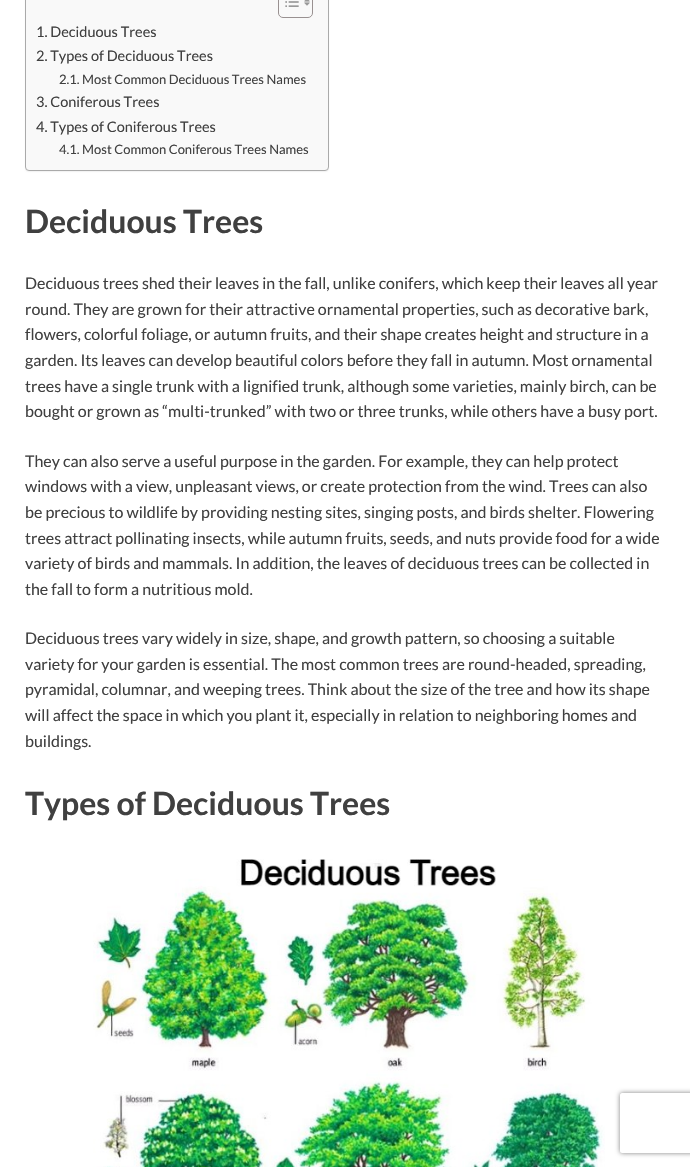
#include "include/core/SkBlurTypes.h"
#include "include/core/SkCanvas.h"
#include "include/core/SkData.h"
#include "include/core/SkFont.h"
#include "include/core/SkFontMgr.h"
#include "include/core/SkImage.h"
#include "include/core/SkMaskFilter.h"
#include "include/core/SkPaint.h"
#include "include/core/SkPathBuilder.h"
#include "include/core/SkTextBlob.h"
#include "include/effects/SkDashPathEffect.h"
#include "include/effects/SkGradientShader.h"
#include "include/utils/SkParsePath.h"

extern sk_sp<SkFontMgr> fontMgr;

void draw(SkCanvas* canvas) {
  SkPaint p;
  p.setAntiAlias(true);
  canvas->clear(SK_ColorWHITE);
  p.setColor(SkColorSetARGB(13, 0, 0, 0));
  p.setMaskFilter(SkMaskFilter::MakeBlur(kNormal_SkBlurStyle, 0.5f));
  canvas->drawRoundRect(SkRect::MakeLTRB(25, -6, 329, 172), 4, 4, p);
  p.setMaskFilter(nullptr);
  p.setColor(SkColorSetRGB(249, 249, 249));
  canvas->drawRoundRect(SkRect::MakeLTRB(25.5f, -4.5f, 328.5f, 170.5f), 3.5f, 3.5f, p);
  p.setStyle(SkPaint::kStroke_Style);
  p.setStrokeWidth(1);
  p.setColor(SkColorSetRGB(170, 170, 170));
  canvas->drawRoundRect(SkRect::MakeLTRB(25.5f, -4.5f, 328.5f, 170.5f), 3.5f, 3.5f, p);
  p.setColor(SkColorSetRGB(153, 145, 145));
  canvas->drawRoundRect(SkRect::MakeLTRB(278.5f, -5.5f, 312.5f, 17.5f), 4.5f, 4.5f, p);
  canvas->drawImageRect(SkImages::DeferredFromEncodedData(SkData::MakeFromFileName("images/1.png")), SkRect::MakeLTRB(285, 1, 299, 7), SkSamplingOptions());
  canvas->drawImageRect(SkImages::DeferredFromEncodedData(SkData::MakeFromFileName("images/2.png")), SkRect::MakeLTRB(304, 0, 310, 6), SkSamplingOptions());
  canvas->drawImageRect(SkImages::DeferredFromEncodedData(SkData::MakeFromFileName("images/3.png")), SkRect::MakeLTRB(93, 859, 605, 1167), SkSamplingOptions());
  canvas->save();
  canvas->clipPath(SkPathBuilder(SkPathFillType::kEvenOdd).moveTo(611, 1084).lineTo(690, 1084).lineTo(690, 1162).lineTo(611, 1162).close().moveTo(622, 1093).lineTo(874, 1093).cubicTo(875, 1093, 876, 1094, 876, 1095).lineTo(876, 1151).cubicTo(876, 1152, 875, 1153, 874, 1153).lineTo(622, 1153).cubicTo(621, 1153, 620, 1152, 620, 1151).lineTo(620, 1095).cubicTo(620, 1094, 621, 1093, 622, 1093).close().detach(), true);
  p.setStyle(SkPaint::kFill_Style);
  p.setColor(SkColorSetRGB(128, 128, 128));
  p.setMaskFilter(SkMaskFilter::MakeBlur(kNormal_SkBlurStyle, 2.5f));
  canvas->drawRoundRect(SkRect::MakeLTRB(620, 1093, 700, 1153), 2, 2, p);
  p.setMaskFilter(nullptr);
  canvas->restore();
  SkFont font1(fontMgr->matchFamilyStyle("Lato", SkFontStyle::Normal()), 14.5f);
  font1.setSubpixel(true);
  p.setColor(SkColorSetRGB(64, 64, 64));
  canvas->drawString("1. Deciduous Trees", 36, 37, font1, p);
  canvas->drawString("2. Types of Deciduous Trees", 36, 61, font1, p);
  SkFont font2(fontMgr->matchFamilyStyle("Lato", SkFontStyle::Normal()), 13);
  font2.setSubpixel(true);
  canvas->drawString("2.1. Most Common Deciduous Trees Names", 59, 84, font2, p);
  canvas->drawString("3. Coniferous Trees", 36, 107, font1, p);
  canvas->drawString("4. Types of Coniferous Trees", 36, 132, font1, p);
  canvas->drawString("4.1. Most Common Coniferous Trees Names", 59, 154, font2, p);
  SkFont font3(fontMgr->matchFamilyStyle("Lato", SkFontStyle::Bold()), 32);
  font3.setSubpixel(true);
  canvas->drawString("Deciduous Trees", 25, 233, font3, p);
  SkFont font4(fontMgr->matchFamilyStyle("Lato", SkFontStyle::Normal()), 16);
  font4.setSubpixel(true);
  canvas->drawString("Deciduous trees shed their leaves in the fall, unlike conifers, which keep their leaves all year", 25, 289, font4, p);
  canvas->drawString("round. They are grown for their attractive ornamental properties, such as decorative bark,", 25, 315, font4, p);
  canvas->drawString("flowers, colorful foliage, or autumn fruits, and their shape creates height and structure in a", 25, 340, font4, p);
  canvas->drawString("garden. Its leaves can develop beautiful colors before they fall in autumn. Most ornamental", 25, 366, font4, p);
  canvas->drawString("trees have a single trunk with a lignified trunk, although some varieties, mainly birch, can be", 25, 392, font4, p);
  canvas->drawString("bought or grown as “multi-trunked” with two or three trunks, while others have a busy port.", 25, 417, font4, p);
  canvas->drawString("They can also serve a useful purpose in the garden. For example, they can help protect", 25, 467, font4, p);
  canvas->drawString("windows with a view, unpleasant views, or create protection from the wind. Trees can also", 25, 492, font4, p);
  canvas->drawString("be precious to wildlife by providing nesting sites, singing posts, and birds shelter. Flowering", 25, 518, font4, p);
  canvas->drawString("trees attract pollinating insects, while autumn fruits, seeds, and nuts provide food for a wide", 25, 544, font4, p);
  canvas->drawString("variety of birds and mammals. In addition, the leaves of deciduous trees can be collected in", 25, 569, font4, p);
  canvas->drawString("the fall to form a nutritious mold.", 25, 595, font4, p);
  canvas->drawString("Deciduous trees vary widely in size, shape, and growth pattern, so choosing a suitable", 25, 644, font4, p);
  canvas->drawString("variety for your garden is essential. The most common trees are round-headed, spreading,", 25, 670, font4, p);
  canvas->drawString("pyramidal, columnar, and weeping trees. Think about the size of the tree and how its shape", 25, 695, font4, p);
  canvas->drawString("will affect the space in which you plant it, especially in relation to neighboring homes and", 25, 721, font4, p);
  canvas->drawString("buildings.", 25, 747, font4, p);
  canvas->drawString("Types of Deciduous Trees", 25, 815, font3, p);
}
